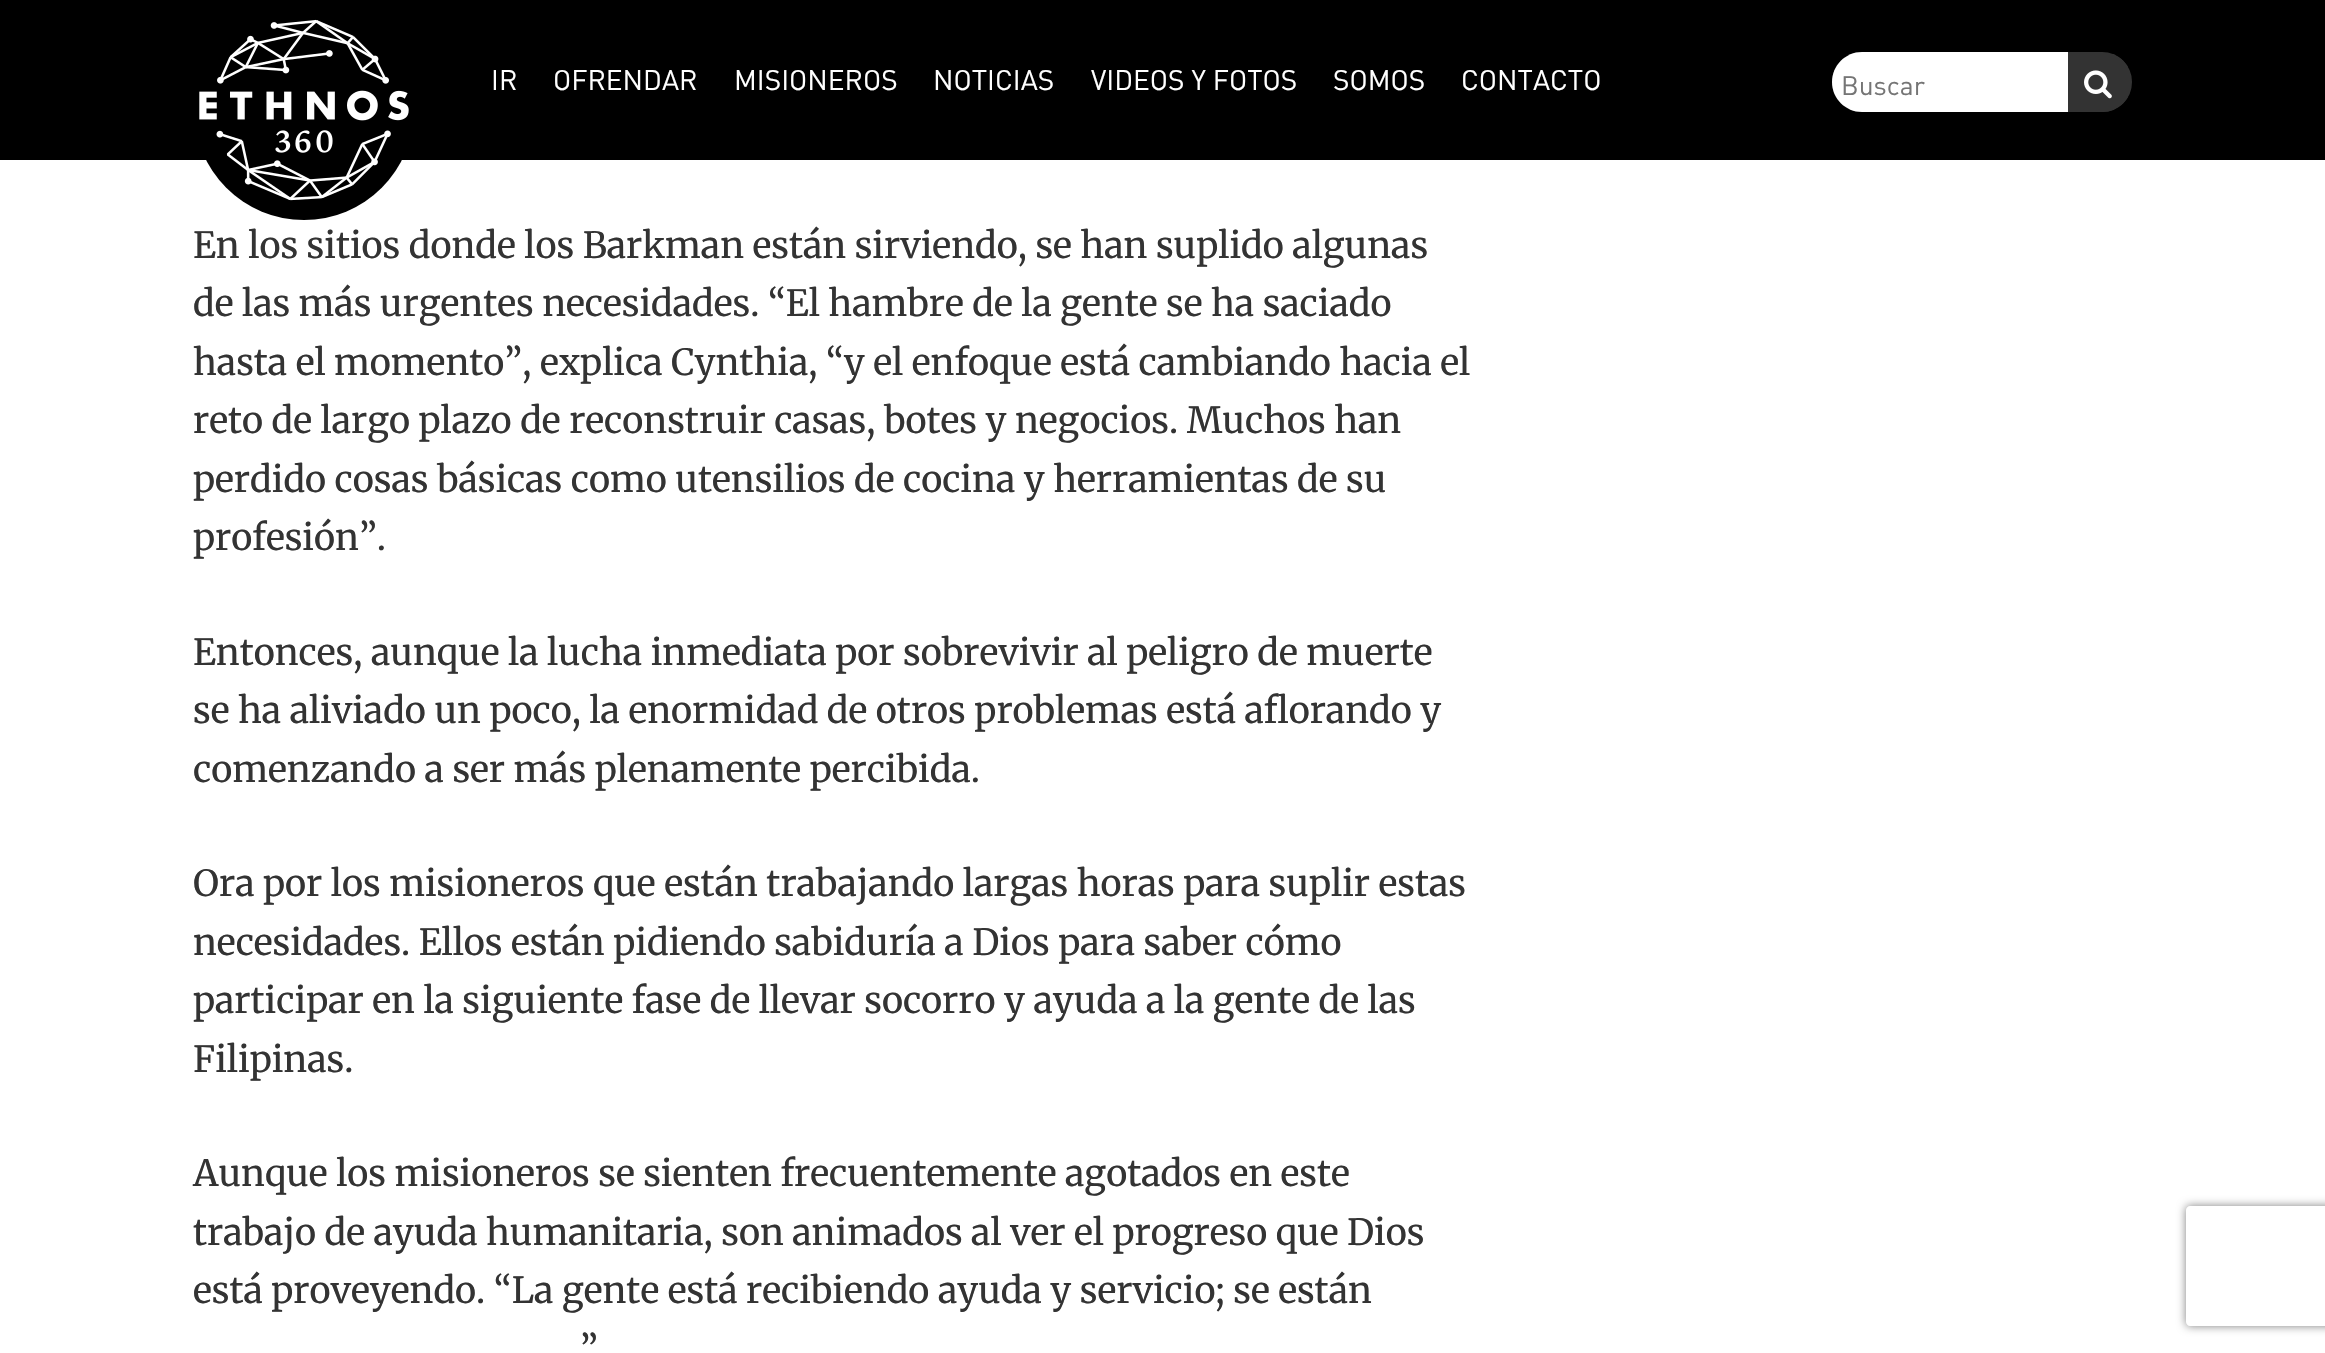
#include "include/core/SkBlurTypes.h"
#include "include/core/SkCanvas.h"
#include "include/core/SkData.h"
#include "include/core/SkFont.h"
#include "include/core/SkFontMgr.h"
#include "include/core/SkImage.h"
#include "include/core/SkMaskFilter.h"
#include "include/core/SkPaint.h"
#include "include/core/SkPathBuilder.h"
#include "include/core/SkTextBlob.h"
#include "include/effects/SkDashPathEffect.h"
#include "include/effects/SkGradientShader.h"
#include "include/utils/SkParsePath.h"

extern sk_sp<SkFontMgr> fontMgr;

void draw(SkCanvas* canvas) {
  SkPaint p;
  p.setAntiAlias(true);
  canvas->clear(SK_ColorWHITE);
  p.setColor(SK_ColorBLACK);
  canvas->drawRect(SkRect::MakeLTRB(0, 0, 2325, 160), p);
  canvas->drawCircle(304, 110, 110, p);
  canvas->drawImageRect(SkImages::DeferredFromEncodedData(SkData::MakeFromFileName("images/1.png")), SkRect::MakeLTRB(199, 19, 409, 201), SkSamplingOptions());
  p.setColor(SkColorSetRGB(51, 51, 51));
  canvas->drawRoundRect(SkRect::MakeLTRB(1831, 51, 2133, 113), 31, 31, p);
  p.setStyle(SkPaint::kStroke_Style);
  p.setStrokeWidth(2);
  p.setColor(SK_ColorBLACK);
  canvas->drawRoundRect(SkRect::MakeLTRB(1831, 51, 2133, 113), 31, 31, p);
  canvas->save();
  canvas->clipPath(SkPathBuilder().moveTo(1862, 52).lineTo(2102, 52).cubicTo(2118.5f, 52, 2132, 65.5f, 2132, 82).cubicTo(2132, 98.5f, 2118.5f, 112, 2102, 112).lineTo(1862, 112).cubicTo(1845.5f, 112, 1832, 98.5f, 1832, 82).cubicTo(1832, 65.5f, 1845.5f, 52, 1862, 52).close().detach(), true);
  p.setStyle(SkPaint::kFill_Style);
  p.setColor(SkColorSetRGB(51, 51, 51));
  canvas->drawRoundRect(SkRect::MakeLTRB(2068, 54, 2128, 114), 10, 10, p);
  canvas->restore();
  p.setColor(SK_ColorWHITE);
  canvas->drawPath(SkPathBuilder().moveTo(1862, 52).lineTo(2068, 52).lineTo(2068, 112).lineTo(1862, 112).cubicTo(1845.5f, 112, 1832, 98.5f, 1832, 82).cubicTo(1832, 65.5f, 1845.5f, 52, 1862, 52).close().detach(), p);
  canvas->drawImageRect(SkImages::DeferredFromEncodedData(SkData::MakeFromFileName("images/2.png")), SkRect::MakeLTRB(2084, 70, 2112, 99), SkSamplingOptions());
  canvas->save();
  canvas->clipPath(SkPathBuilder(SkPathFillType::kEvenOdd).moveTo(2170, 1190).lineTo(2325, 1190).lineTo(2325, 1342).lineTo(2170, 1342).close().moveTo(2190, 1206).lineTo(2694, 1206).cubicTo(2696, 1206, 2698, 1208, 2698, 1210).lineTo(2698, 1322).cubicTo(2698, 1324, 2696, 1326, 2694, 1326).lineTo(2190, 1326).cubicTo(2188, 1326, 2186, 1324, 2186, 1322).lineTo(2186, 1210).cubicTo(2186, 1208, 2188, 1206, 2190, 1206).close().detach(), true);
  p.setColor(SkColorSetRGB(128, 128, 128));
  p.setMaskFilter(SkMaskFilter::MakeBlur(kNormal_SkBlurStyle, 5));
  canvas->drawRoundRect(SkRect::MakeLTRB(2186, 1206, 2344, 1326), 4, 4, p);
  p.setMaskFilter(nullptr);
  canvas->restore();
  SkFont font1(fontMgr->matchFamilyStyle("DIN", SkFontStyle::Normal()), 28);
  font1.setSubpixel(true);
  p.setColor(SK_ColorWHITE);
  canvas->drawString("IR", 491, 90, font1, p);
  canvas->drawString("OFRENDAR", 553, 90, font1, p);
  canvas->drawString("MISIONEROS", 734, 90, font1, p);
  canvas->drawString("NOTICIAS", 933, 90, font1, p);
  canvas->drawString("VIDEOS Y FOTOS", 1091, 90, font1, p);
  canvas->drawString("SOMOS", 1333, 90, font1, p);
  canvas->drawString("CONTACTO", 1461, 90, font1, p);
  SkFont font2(fontMgr->matchFamilyStyle("DIN", SkFontStyle::Normal()), 26.5f);
  font2.setSubpixel(true);
  p.setColor(SkColorSetRGB(117, 117, 117));
  canvas->drawString("Buscar", 1841, 95, font2, p);
  SkFont font3(fontMgr->matchFamilyStyle("Merriweather", SkFontStyle::Normal()), 36);
  font3.setSubpixel(true);
  p.setColor(SkColorSetRGB(51, 51, 51));
  canvas->drawString("En los sitios donde los Barkman están sirviendo, se han suplido algunas", 193, 258, font3, p);
  canvas->drawString("de las más urgentes necesidades. “El hambre de la gente se ha saciado", 193, 316, font3, p);
  canvas->drawString("hasta el momento”, explica Cynthia, “y el enfoque está cambiando hacia el", 193, 375, font3, p);
  canvas->drawString("reto de largo plazo de reconstruir casas, botes y negocios. Muchos han", 193, 433, font3, p);
  canvas->drawString("perdido cosas básicas como utensilios de cocina y herramientas de su", 193, 492, font3, p);
  canvas->drawString("profesión”.", 193, 550, font3, p);
  canvas->drawString("Entonces, aunque la lucha inmediata por sobrevivir al peligro de muerte", 193, 665, font3, p);
  canvas->drawString("se ha aliviado un poco, la enormidad de otros problemas está aflorando y", 193, 723, font3, p);
  canvas->drawString("comenzando a ser más plenamente percibida.", 193, 782, font3, p);
  canvas->drawString("Ora por los misioneros que están trabajando largas horas para suplir estas", 193, 896, font3, p);
  canvas->drawString("necesidades. Ellos están pidiendo sabiduría a Dios para saber cómo", 193, 955, font3, p);
  canvas->drawString("participar en la siguiente fase de llevar socorro y ayuda a la gente de las", 193, 1013, font3, p);
  canvas->drawString("Filipinas.", 193, 1072, font3, p);
  canvas->drawString("Aunque los misioneros se sienten frecuentemente agotados en este", 193, 1186, font3, p);
  canvas->drawString("trabajo de ayuda humanitaria, son animados al ver el progreso que Dios", 193, 1245, font3, p);
  canvas->drawString("está proveyendo. “La gente está recibiendo ayuda y servicio; se están", 193, 1303, font3, p);
  canvas->drawString("”", 580, 1362, font3, p);
}
